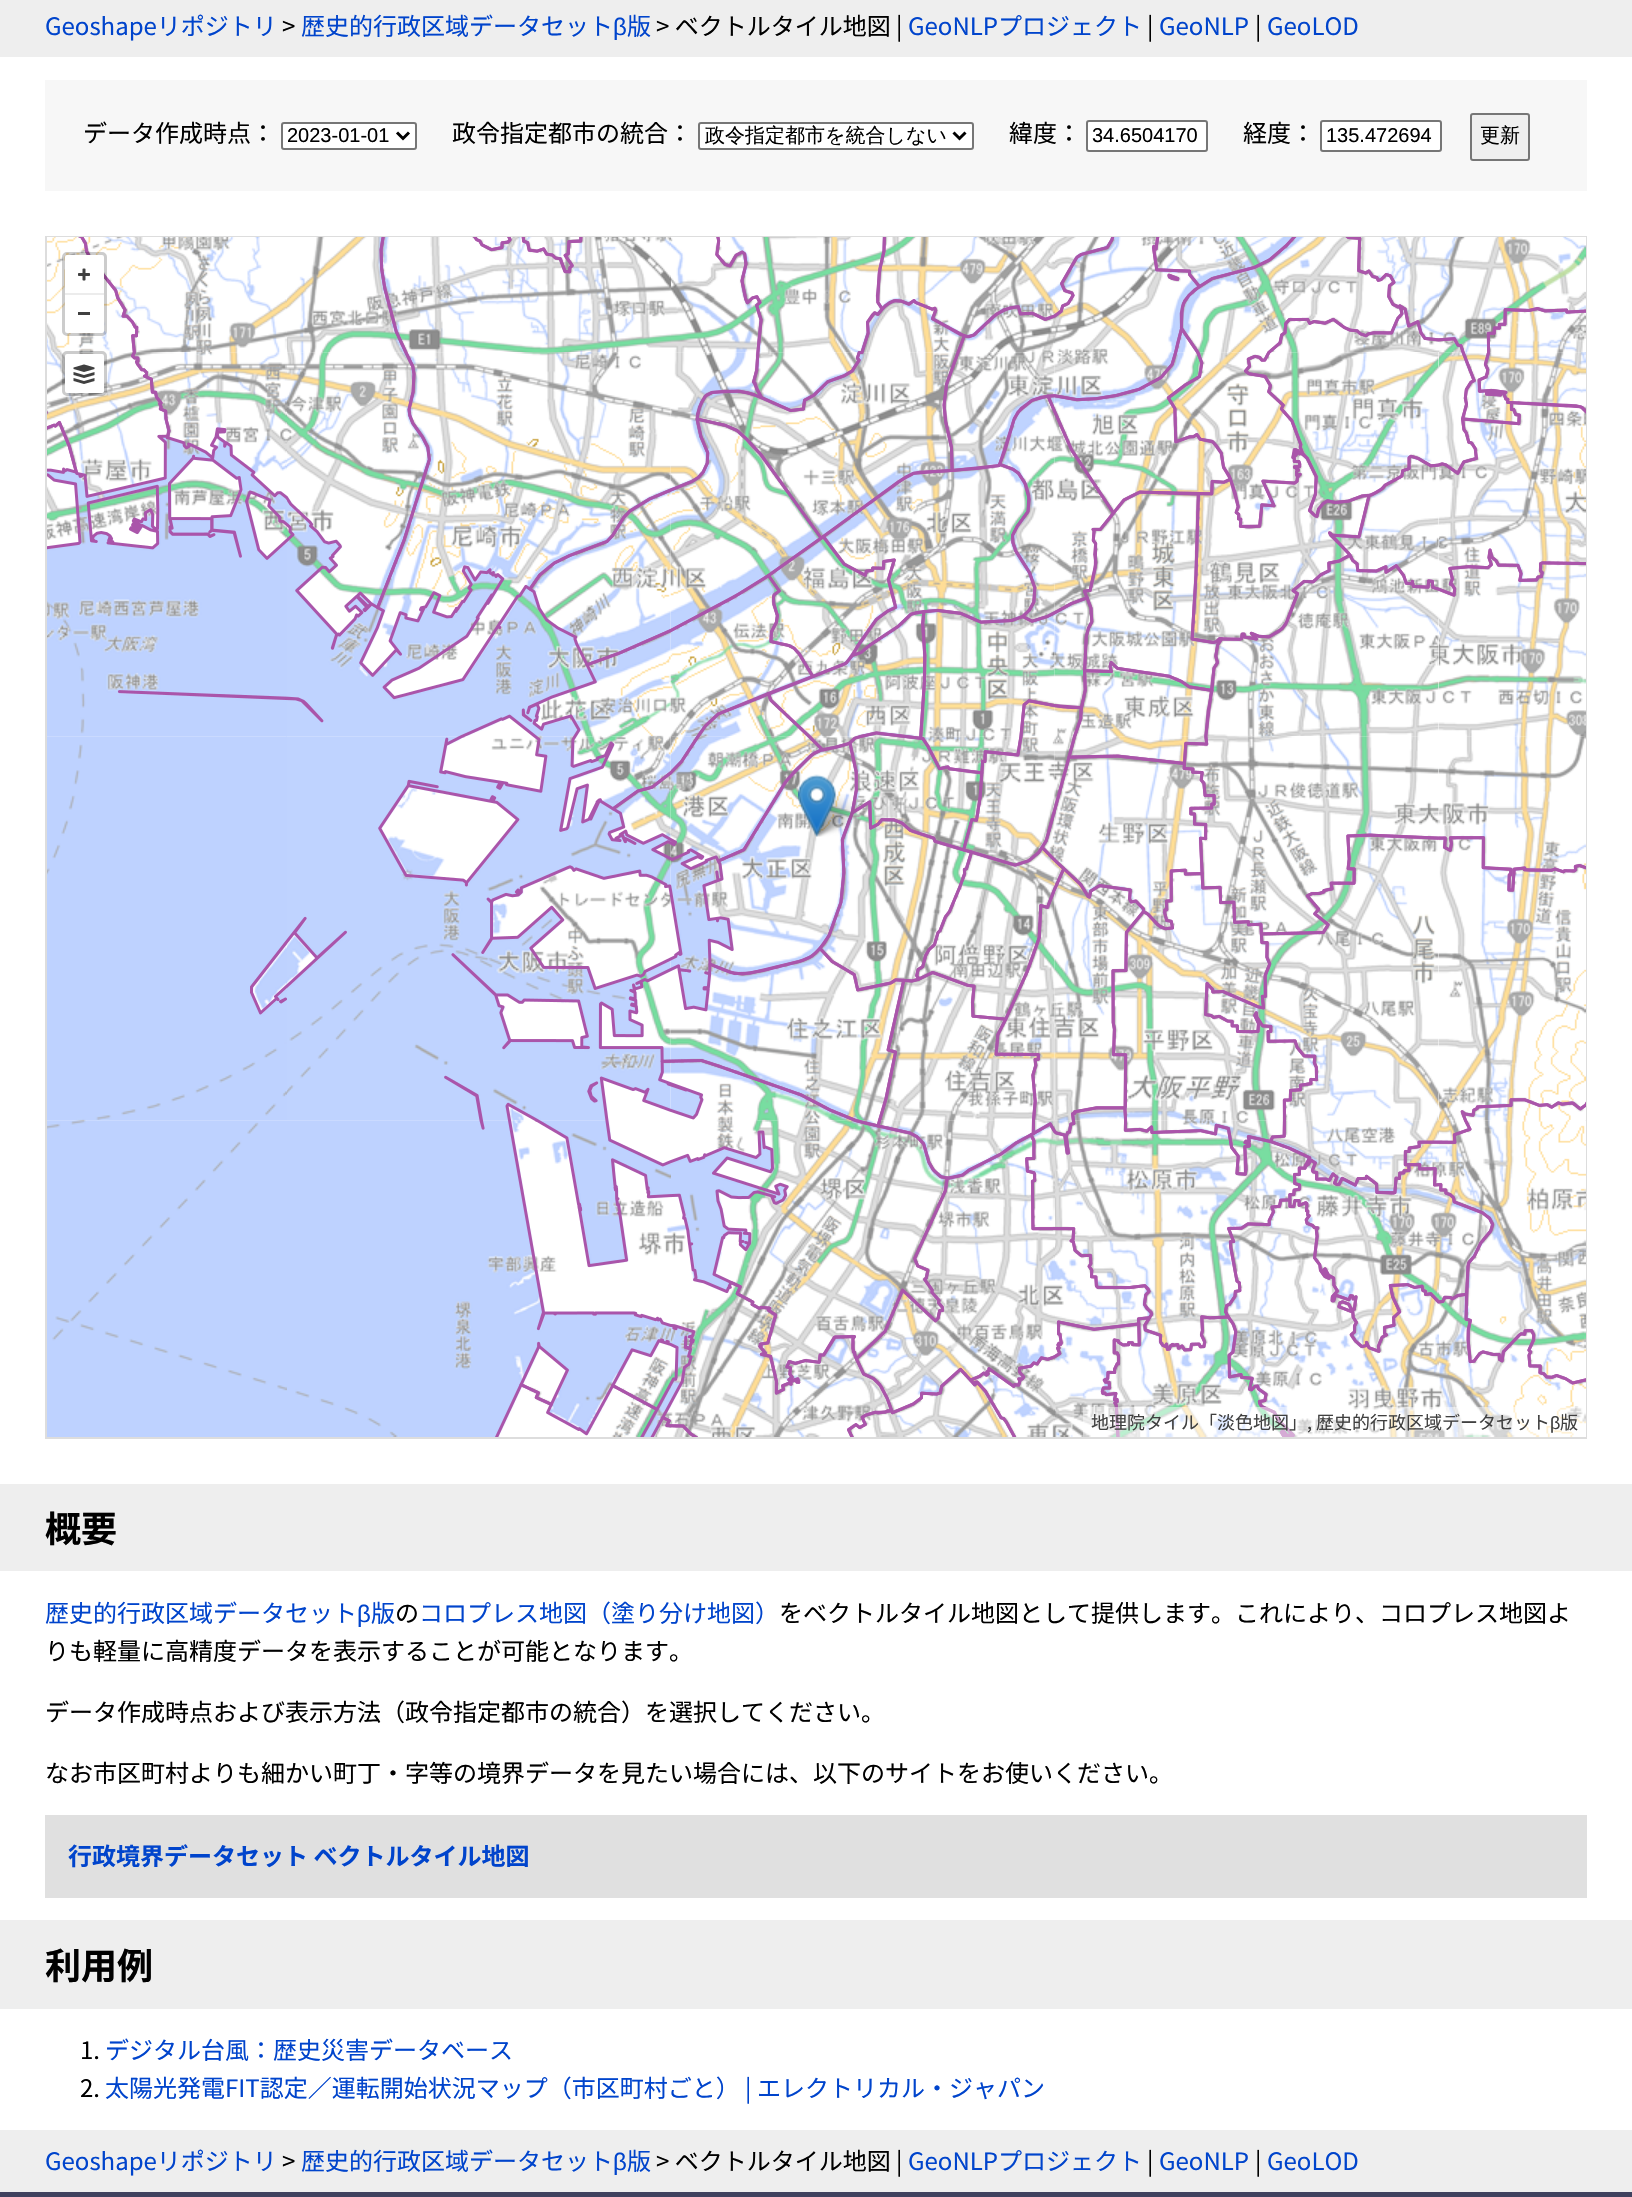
#include "include/core/SkBlurTypes.h"
#include "include/core/SkCanvas.h"
#include "include/core/SkData.h"
#include "include/core/SkFont.h"
#include "include/core/SkFontMgr.h"
#include "include/core/SkImage.h"
#include "include/core/SkMaskFilter.h"
#include "include/core/SkPaint.h"
#include "include/core/SkPathBuilder.h"
#include "include/core/SkTextBlob.h"
#include "include/effects/SkDashPathEffect.h"
#include "include/effects/SkGradientShader.h"
#include "include/utils/SkParsePath.h"

extern sk_sp<SkFontMgr> fontMgr;

void draw(SkCanvas* canvas) {
  SkPaint p;
  p.setAntiAlias(true);
  canvas->clear(SK_ColorWHITE);
  p.setColor(SkColorSetRGB(238, 238, 238));
  canvas->drawRect(SkRect::MakeLTRB(0, 0, 1632, 57), p);
  p.setColor(SkColorSetRGB(247, 247, 247));
  canvas->drawRect(SkRect::MakeLTRB(45, 80, 1587, 191), p);
  p.setColor(SK_ColorWHITE);
  canvas->drawRoundRect(SkRect::MakeLTRB(282, 123, 416, 149), 2, 2, p);
  p.setStyle(SkPaint::kStroke_Style);
  p.setStrokeWidth(2);
  p.setColor(SkColorSetRGB(118, 118, 118));
  canvas->drawRoundRect(SkRect::MakeLTRB(282, 123, 416, 149), 2, 2, p);
  p.setStrokeWidth(3);
  p.setColor(SK_ColorBLACK);
  canvas->drawPath(SkPathBuilder().moveTo(397, 132.5f).lineTo(403, 138.5f).lineTo(409, 132.5f).detach(), p);
  p.setStyle(SkPaint::kFill_Style);
  p.setColor(SK_ColorWHITE);
  canvas->drawRoundRect(SkRect::MakeLTRB(699, 123, 973, 149), 2, 2, p);
  p.setStyle(SkPaint::kStroke_Style);
  p.setStrokeWidth(2);
  p.setColor(SkColorSetRGB(118, 118, 118));
  canvas->drawRoundRect(SkRect::MakeLTRB(699, 123, 973, 149), 2, 2, p);
  p.setStrokeWidth(3);
  p.setColor(SK_ColorBLACK);
  canvas->drawPath(SkPathBuilder().moveTo(953.5f, 132.5f).lineTo(959.5f, 138.5f).lineTo(965.5f, 132.5f).detach(), p);
  p.setStyle(SkPaint::kFill_Style);
  p.setColor(SK_ColorWHITE);
  canvas->drawRoundRect(SkRect::MakeLTRB(1087, 121, 1207, 151), 2, 2, p);
  p.setStyle(SkPaint::kStroke_Style);
  p.setStrokeWidth(2);
  p.setColor(SkColorSetRGB(118, 118, 118));
  canvas->drawRoundRect(SkRect::MakeLTRB(1087, 121, 1207, 151), 2, 2, p);
  p.setStyle(SkPaint::kFill_Style);
  p.setColor(SK_ColorWHITE);
  canvas->drawRoundRect(SkRect::MakeLTRB(1321, 121, 1441, 151), 2, 2, p);
  p.setStyle(SkPaint::kStroke_Style);
  p.setColor(SkColorSetRGB(118, 118, 118));
  canvas->drawRoundRect(SkRect::MakeLTRB(1321, 121, 1441, 151), 2, 2, p);
  p.setStyle(SkPaint::kFill_Style);
  p.setColor(SkColorSetRGB(239, 239, 239));
  canvas->drawRoundRect(SkRect::MakeLTRB(1471, 114, 1529, 160), 2, 2, p);
  p.setStyle(SkPaint::kStroke_Style);
  p.setColor(SkColorSetRGB(118, 118, 118));
  canvas->drawRoundRect(SkRect::MakeLTRB(1471, 114, 1529, 160), 2, 2, p);
  p.setColor(SkColorSetRGB(221, 221, 221));
  canvas->drawRect(SkRect::MakeLTRB(46, 237, 1586, 1438), p);
  canvas->drawImageRect(SkImages::DeferredFromEncodedData(SkData::MakeFromFileName("images/1.png")), SkRect::MakeLTRB(47, 237, 287, 352), SkSamplingOptions());
  canvas->drawImageRect(SkImages::DeferredFromEncodedData(SkData::MakeFromFileName("images/2.png")), SkRect::MakeLTRB(287, 237, 671, 352), SkSamplingOptions());
  canvas->drawImageRect(SkImages::DeferredFromEncodedData(SkData::MakeFromFileName("images/3.png")), SkRect::MakeLTRB(671, 237, 1055, 352), SkSamplingOptions());
  canvas->drawImageRect(SkImages::DeferredFromEncodedData(SkData::MakeFromFileName("images/4.png")), SkRect::MakeLTRB(1055, 237, 1439, 352), SkSamplingOptions());
  canvas->drawImageRect(SkImages::DeferredFromEncodedData(SkData::MakeFromFileName("images/5.png")), SkRect::MakeLTRB(1439, 237, 1586, 352), SkSamplingOptions());
  canvas->drawImageRect(SkImages::DeferredFromEncodedData(SkData::MakeFromFileName("images/8.png")), SkRect::MakeLTRB(670, 352, 1055, 736), SkSamplingOptions());
  canvas->drawImageRect(SkImages::DeferredFromEncodedData(SkData::MakeFromFileName("images/13.png")), SkRect::MakeLTRB(670, 735, 1055, 1120), SkSamplingOptions());
  canvas->drawImageRect(SkImages::DeferredFromEncodedData(SkData::MakeFromFileName("images/7.png")), SkRect::MakeLTRB(286, 352, 671, 736), SkSamplingOptions());
  canvas->drawImageRect(SkImages::DeferredFromEncodedData(SkData::MakeFromFileName("images/12.png")), SkRect::MakeLTRB(286, 735, 671, 1120), SkSamplingOptions());
  canvas->drawImageRect(SkImages::DeferredFromEncodedData(SkData::MakeFromFileName("images/6.png")), SkRect::MakeLTRB(47, 352, 287, 736), SkSamplingOptions());
  canvas->drawImageRect(SkImages::DeferredFromEncodedData(SkData::MakeFromFileName("images/9.png")), SkRect::MakeLTRB(1054, 352, 1439, 736), SkSamplingOptions());
  canvas->drawImageRect(SkImages::DeferredFromEncodedData(SkData::MakeFromFileName("images/10.png")), SkRect::MakeLTRB(1439, 352, 1586, 736), SkSamplingOptions());
  canvas->drawImageRect(SkImages::DeferredFromEncodedData(SkData::MakeFromFileName("images/11.png")), SkRect::MakeLTRB(47, 736, 287, 1120), SkSamplingOptions());
  canvas->drawImageRect(SkImages::DeferredFromEncodedData(SkData::MakeFromFileName("images/14.png")), SkRect::MakeLTRB(1054, 735, 1439, 1120), SkSamplingOptions());
  canvas->drawImageRect(SkImages::DeferredFromEncodedData(SkData::MakeFromFileName("images/15.png")), SkRect::MakeLTRB(1439, 736, 1586, 1120), SkSamplingOptions());
  canvas->drawImageRect(SkImages::DeferredFromEncodedData(SkData::MakeFromFileName("images/16.png")), SkRect::MakeLTRB(47, 1119, 287, 1437), SkSamplingOptions());
  canvas->drawImageRect(SkImages::DeferredFromEncodedData(SkData::MakeFromFileName("images/17.png")), SkRect::MakeLTRB(287, 1119, 671, 1437), SkSamplingOptions());
  canvas->drawImageRect(SkImages::DeferredFromEncodedData(SkData::MakeFromFileName("images/18.png")), SkRect::MakeLTRB(671, 1119, 1055, 1437), SkSamplingOptions());
  canvas->drawImageRect(SkImages::DeferredFromEncodedData(SkData::MakeFromFileName("images/19.png")), SkRect::MakeLTRB(1055, 1119, 1439, 1437), SkSamplingOptions());
  canvas->drawImageRect(SkImages::DeferredFromEncodedData(SkData::MakeFromFileName("images/20.png")), SkRect::MakeLTRB(1439, 1119, 1586, 1437), SkSamplingOptions());
  canvas->drawImageRect(SkImages::DeferredFromEncodedData(SkData::MakeFromFileName("images/21.png")), SkRect::MakeLTRB(78, 237, 139, 353), SkSamplingOptions());
  canvas->drawImageRect(SkImages::DeferredFromEncodedData(SkData::MakeFromFileName("images/22.png")), SkRect::MakeLTRB(379, 237, 583, 353), SkSamplingOptions());
  canvas->drawImageRect(SkImages::DeferredFromEncodedData(SkData::MakeFromFileName("images/23.png")), SkRect::MakeLTRB(715, 237, 1055, 353), SkSamplingOptions());
  canvas->drawImageRect(SkImages::DeferredFromEncodedData(SkData::MakeFromFileName("images/24.png")), SkRect::MakeLTRB(1055, 237, 1439, 353), SkSamplingOptions());
  canvas->drawImageRect(SkImages::DeferredFromEncodedData(SkData::MakeFromFileName("images/25.png")), SkRect::MakeLTRB(1439, 307, 1586, 353), SkSamplingOptions());
  canvas->drawImageRect(SkImages::DeferredFromEncodedData(SkData::MakeFromFileName("images/26.png")), SkRect::MakeLTRB(47, 353, 287, 701), SkSamplingOptions());
  canvas->drawImageRect(SkImages::DeferredFromEncodedData(SkData::MakeFromFileName("images/27.png")), SkRect::MakeLTRB(287, 353, 671, 737), SkSamplingOptions());
  canvas->drawImageRect(SkImages::DeferredFromEncodedData(SkData::MakeFromFileName("images/28.png")), SkRect::MakeLTRB(671, 353, 1055, 737), SkSamplingOptions());
  canvas->drawImageRect(SkImages::DeferredFromEncodedData(SkData::MakeFromFileName("images/29.png")), SkRect::MakeLTRB(1055, 353, 1439, 737), SkSamplingOptions());
  canvas->drawImageRect(SkImages::DeferredFromEncodedData(SkData::MakeFromFileName("images/30.png")), SkRect::MakeLTRB(1439, 353, 1586, 597), SkSamplingOptions());
  canvas->save();
  canvas->clipRect(SkRect::MakeLTRB(47, 737, 287, 1121));
  p.setStrokeWidth(3);
  p.setStrokeCap(SkPaint::kRound_Cap);
  p.setStrokeJoin(SkPaint::kRound_Join);
  p.setColor(SkColorSetRGB(170, 85, 170));
  canvas->drawPath(SkPathBuilder().moveTo(294, 932.5f).lineTo(294, 979.5f).lineTo(275.5f, 996.5f).lineTo(278, 999.5f).lineTo(276.5f, 998.5f).lineTo(260.5f, 1013).lineTo(251.5f, 992.5f).lineTo(251.5f, 987).close().moveTo(285.5f, 999).lineTo(281, 1002).lineTo(280.5f, 1001.5f).close().detach(), p);
  canvas->restore();
  canvas->drawImageRect(SkImages::DeferredFromEncodedData(SkData::MakeFromFileName("images/31.png")), SkRect::MakeLTRB(287, 737, 671, 1121), SkSamplingOptions());
  canvas->drawImageRect(SkImages::DeferredFromEncodedData(SkData::MakeFromFileName("images/32.png")), SkRect::MakeLTRB(671, 737, 1055, 1121), SkSamplingOptions());
  canvas->drawImageRect(SkImages::DeferredFromEncodedData(SkData::MakeFromFileName("images/33.png")), SkRect::MakeLTRB(1055, 737, 1439, 1121), SkSamplingOptions());
  canvas->drawImageRect(SkImages::DeferredFromEncodedData(SkData::MakeFromFileName("images/34.png")), SkRect::MakeLTRB(1439, 836, 1586, 1121), SkSamplingOptions());
  canvas->drawImageRect(SkImages::DeferredFromEncodedData(SkData::MakeFromFileName("images/35.png")), SkRect::MakeLTRB(479, 1121, 671, 1437), SkSamplingOptions());
  canvas->drawImageRect(SkImages::DeferredFromEncodedData(SkData::MakeFromFileName("images/36.png")), SkRect::MakeLTRB(671, 1121, 1055, 1437), SkSamplingOptions());
  canvas->drawImageRect(SkImages::DeferredFromEncodedData(SkData::MakeFromFileName("images/37.png")), SkRect::MakeLTRB(1055, 1121, 1439, 1437), SkSamplingOptions());
  canvas->drawImageRect(SkImages::DeferredFromEncodedData(SkData::MakeFromFileName("images/38.png")), SkRect::MakeLTRB(1439, 1121, 1586, 1385), SkSamplingOptions());
  canvas->drawImageRect(SkImages::DeferredFromEncodedData(SkData::MakeFromFileName("images/40.png")), SkRect::MakeLTRB(811, 794, 857, 837), SkSamplingOptions());
  canvas->drawImageRect(SkImages::DeferredFromEncodedData(SkData::MakeFromFileName("images/39.png")), SkRect::MakeLTRB(798, 774, 836, 837), SkSamplingOptions());
  p.setStyle(SkPaint::kFill_Style);
  p.setColor(SK_ColorWHITE);
  canvas->drawRoundRect(SkRect::MakeLTRB(65, 255, 104, 333), 1.5f, 1.5f, p);
  p.setStyle(SkPaint::kStroke_Style);
  p.setStrokeCap(SkPaint::kButt_Cap);
  p.setStrokeJoin(SkPaint::kMiter_Join);
  p.setColor(SkColorSetARGB(51, 0, 0, 0));
  canvas->drawRoundRect(SkRect::MakeLTRB(63.5f, 253.5f, 105.5f, 334.5f), 3.5f, 3.5f, p);
  canvas->drawImageRect(SkImages::DeferredFromEncodedData(SkData::MakeFromFileName("images/41.png")), SkRect::MakeLTRB(78, 268, 90, 281), SkSamplingOptions());
  p.setStyle(SkPaint::kFill_Style);
  p.setColor(SkColorSetRGB(236, 236, 236));
  canvas->drawRect(SkRect::MakeLTRB(65, 293, 104, 295), p);
  p.setColor(SkColorSetRGB(64, 64, 64));
  canvas->drawRect(SkRect::MakeLTRB(78, 312, 90, 315), p);
  p.setColor(SK_ColorWHITE);
  canvas->drawRoundRect(SkRect::MakeLTRB(65, 354, 104, 393), 1.5f, 1.5f, p);
  p.setStyle(SkPaint::kStroke_Style);
  p.setColor(SkColorSetARGB(51, 0, 0, 0));
  canvas->drawRoundRect(SkRect::MakeLTRB(63.5f, 352.5f, 105.5f, 394.5f), 3.5f, 3.5f, p);
  canvas->drawImageRect(SkImages::DeferredFromEncodedData(SkData::MakeFromFileName("images/42.png")), SkRect::MakeLTRB(73, 364, 95, 384), SkSamplingOptions());
  p.setStyle(SkPaint::kFill_Style);
  p.setColor(SkColorSetARGB(128, 255, 255, 255));
  canvas->drawRect(SkRect::MakeLTRB(1083, 1407, 1586, 1437), p);
  p.setColor(SkColorSetRGB(238, 238, 238));
  canvas->drawRect(SkRect::MakeLTRB(0, 1484, 1632, 1571), p);
  p.setColor(SkColorSetRGB(224, 224, 224));
  canvas->drawRect(SkRect::MakeLTRB(45, 1815, 1587, 1898), p);
  p.setColor(SkColorSetRGB(238, 238, 238));
  canvas->drawRect(SkRect::MakeLTRB(0, 1920, 1632, 2009), p);
  canvas->drawRect(SkRect::MakeLTRB(0, 2130, 1632, 2192), p);
  p.setColor(SkColorSetRGB(63, 65, 94));
  canvas->drawRect(SkRect::MakeLTRB(0, 2192, 1632, 2197), p);
  SkFont font1(fontMgr->matchFamilyStyle("Noto Sans JP", SkFontStyle::Normal()), 24);
  font1.setSubpixel(true);
  p.setColor(SkColorSetRGB(0, 68, 204));
  canvas->drawString("Geoshapeリポジトリ", 45, 35, font1, p);
  p.setColor(SK_ColorBLACK);
  canvas->drawString(">", 282, 35, font1, p);
  p.setColor(SkColorSetRGB(0, 68, 204));
  canvas->drawString("歴史的行政区域データセット", 301, 35, font1, p);
  SkFont font2(fontMgr->matchFamilyStyle("Liberation Sans", SkFontStyle::Normal()), 24);
  font2.setSubpixel(true);
  canvas->drawString("β", 613, 35, font2, p);
  canvas->drawString("版", 627, 35, font1, p);
  p.setColor(SK_ColorBLACK);
  canvas->drawString("> ベクトルタイル地図 |", 656, 35, font1, p);
  p.setColor(SkColorSetRGB(0, 68, 204));
  canvas->drawString("GeoNLPプロジェクト", 908, 35, font1, p);
  p.setColor(SK_ColorBLACK);
  canvas->drawString("|", 1147, 35, font1, p);
  p.setColor(SkColorSetRGB(0, 68, 204));
  canvas->drawString("GeoNLP", 1159, 35, font1, p);
  p.setColor(SK_ColorBLACK);
  canvas->drawString("|", 1255, 35, font1, p);
  p.setColor(SkColorSetRGB(0, 68, 204));
  canvas->drawString("GeoLOD", 1267, 35, font1, p);
  p.setColor(SK_ColorBLACK);
  canvas->drawString("データ作成時点：", 83, 142, font1, p);
  SkFont font3(fontMgr->matchFamilyStyle("Liberation Sans", SkFontStyle::Normal()), 20);
  font3.setSubpixel(true);
  canvas->drawString("2023-01-01", 287, 142, font3, p);
  canvas->drawString("政令指定都市の統合：", 452, 142, font1, p);
  SkFont font4(fontMgr->matchFamilyStyle("WenQuanYi Zen Hei", SkFontStyle(500, SkFontStyle::kNormal_Width, SkFontStyle::kUpright_Slant)), 20);
  font4.setSubpixel(true);
  canvas->drawString("政令指定都市を統合しない", 705, 142, font4, p);
  canvas->drawString("緯度：", 1009, 142, font1, p);
  canvas->drawString("34.6504170", 1092, 142, font3, p);
  canvas->drawString("経度：", 1243, 142, font1, p);
  canvas->drawString("135.472694", 1326, 142, font3, p);
  canvas->drawString("更新", 1480, 142, font4, p);
  SkFont font5(fontMgr->matchFamilyStyle("Noto Sans JP", SkFontStyle::Normal()), 18);
  font5.setSubpixel(true);
  p.setColor(SkColorSetRGB(64, 64, 64));
  canvas->drawString("地理院タイル「淡色地図」", 1091, 1429, font5, p);
  p.setColor(SkColorSetRGB(56, 56, 56));
  canvas->drawString(",", 1307, 1429, font5, p);
  p.setColor(SkColorSetRGB(64, 64, 64));
  canvas->drawString("歴史的行政区域データセット", 1316, 1429, font5, p);
  SkFont font6(fontMgr->matchFamilyStyle("Liberation Sans", SkFontStyle::Normal()), 18);
  font6.setSubpixel(true);
  canvas->drawString("β", 1550, 1429, font6, p);
  canvas->drawString("版", 1560, 1429, font5, p);
  SkFont font7(fontMgr->matchFamilyStyle("Noto Sans JP", SkFontStyle::Bold()), 36);
  font7.setSubpixel(true);
  p.setColor(SK_ColorBLACK);
  canvas->drawString("概要", 45, 1542, font7, p);
  p.setColor(SkColorSetRGB(0, 68, 204));
  canvas->drawString("歴史的行政区域データセット", 45, 1622, font1, p);
  canvas->drawString("β", 357, 1622, font2, p);
  canvas->drawString("版", 371, 1622, font1, p);
  p.setColor(SK_ColorBLACK);
  canvas->drawString("の", 395, 1622, font1, p);
  p.setColor(SkColorSetRGB(0, 68, 204));
  canvas->drawString("コロプレス地図（塗り分け地図）", 419, 1622, font1, p);
  p.setColor(SK_ColorBLACK);
  canvas->drawString("をベクトルタイル地図として提供します。これにより、コロプレス地図よ", 779, 1622, font1, p);
  canvas->drawString("りも軽量に高精度データを表示することが可能となります。", 45, 1660, font1, p);
  canvas->drawString("データ作成時点および表示方法（政令指定都市の統合）を選択してください。", 45, 1721, font1, p);
  canvas->drawString("なお市区町村よりも細かい町丁・字等の境界データを見たい場合には、以下のサイトをお使いください。", 45, 1782, font1, p);
  SkFont font8(fontMgr->matchFamilyStyle("Noto Sans JP", SkFontStyle::Bold()), 24);
  font8.setSubpixel(true);
  p.setColor(SkColorSetRGB(0, 68, 204));
  canvas->drawString("行政境界データセット ベクトルタイル地図", 68, 1865, font8, p);
  p.setColor(SK_ColorBLACK);
  canvas->drawString("利用例", 45, 1979, font7, p);
  canvas->drawString("1.", 80, 2059, font1, p);
  p.setColor(SkColorSetRGB(0, 68, 204));
  canvas->drawString("デジタル台風：歴史災害データベース", 105, 2059, font1, p);
  p.setColor(SK_ColorBLACK);
  canvas->drawString("2.", 80, 2097, font1, p);
  p.setColor(SkColorSetRGB(0, 68, 204));
  canvas->drawString("太陽光発電FIT認定／運転開始状況マップ（市区町村ごと） | エレクトリカル・ジャパン", 105, 2097, font1, p);
  canvas->drawString("Geoshapeリポジトリ", 45, 2170, font1, p);
  p.setColor(SK_ColorBLACK);
  canvas->drawString(">", 282, 2170, font1, p);
  p.setColor(SkColorSetRGB(0, 68, 204));
  canvas->drawString("歴史的行政区域データセット", 301, 2170, font1, p);
  canvas->drawString("β", 613, 2170, font2, p);
  canvas->drawString("版", 627, 2170, font1, p);
  p.setColor(SK_ColorBLACK);
  canvas->drawString("> ベクトルタイル地図 |", 656, 2170, font1, p);
  p.setColor(SkColorSetRGB(0, 68, 204));
  canvas->drawString("GeoNLPプロジェクト", 908, 2170, font1, p);
  p.setColor(SK_ColorBLACK);
  canvas->drawString("|", 1147, 2170, font1, p);
  p.setColor(SkColorSetRGB(0, 68, 204));
  canvas->drawString("GeoNLP", 1159, 2170, font1, p);
  p.setColor(SK_ColorBLACK);
  canvas->drawString("|", 1255, 2170, font1, p);
  p.setColor(SkColorSetRGB(0, 68, 204));
  canvas->drawString("GeoLOD", 1267, 2170, font1, p);
}
